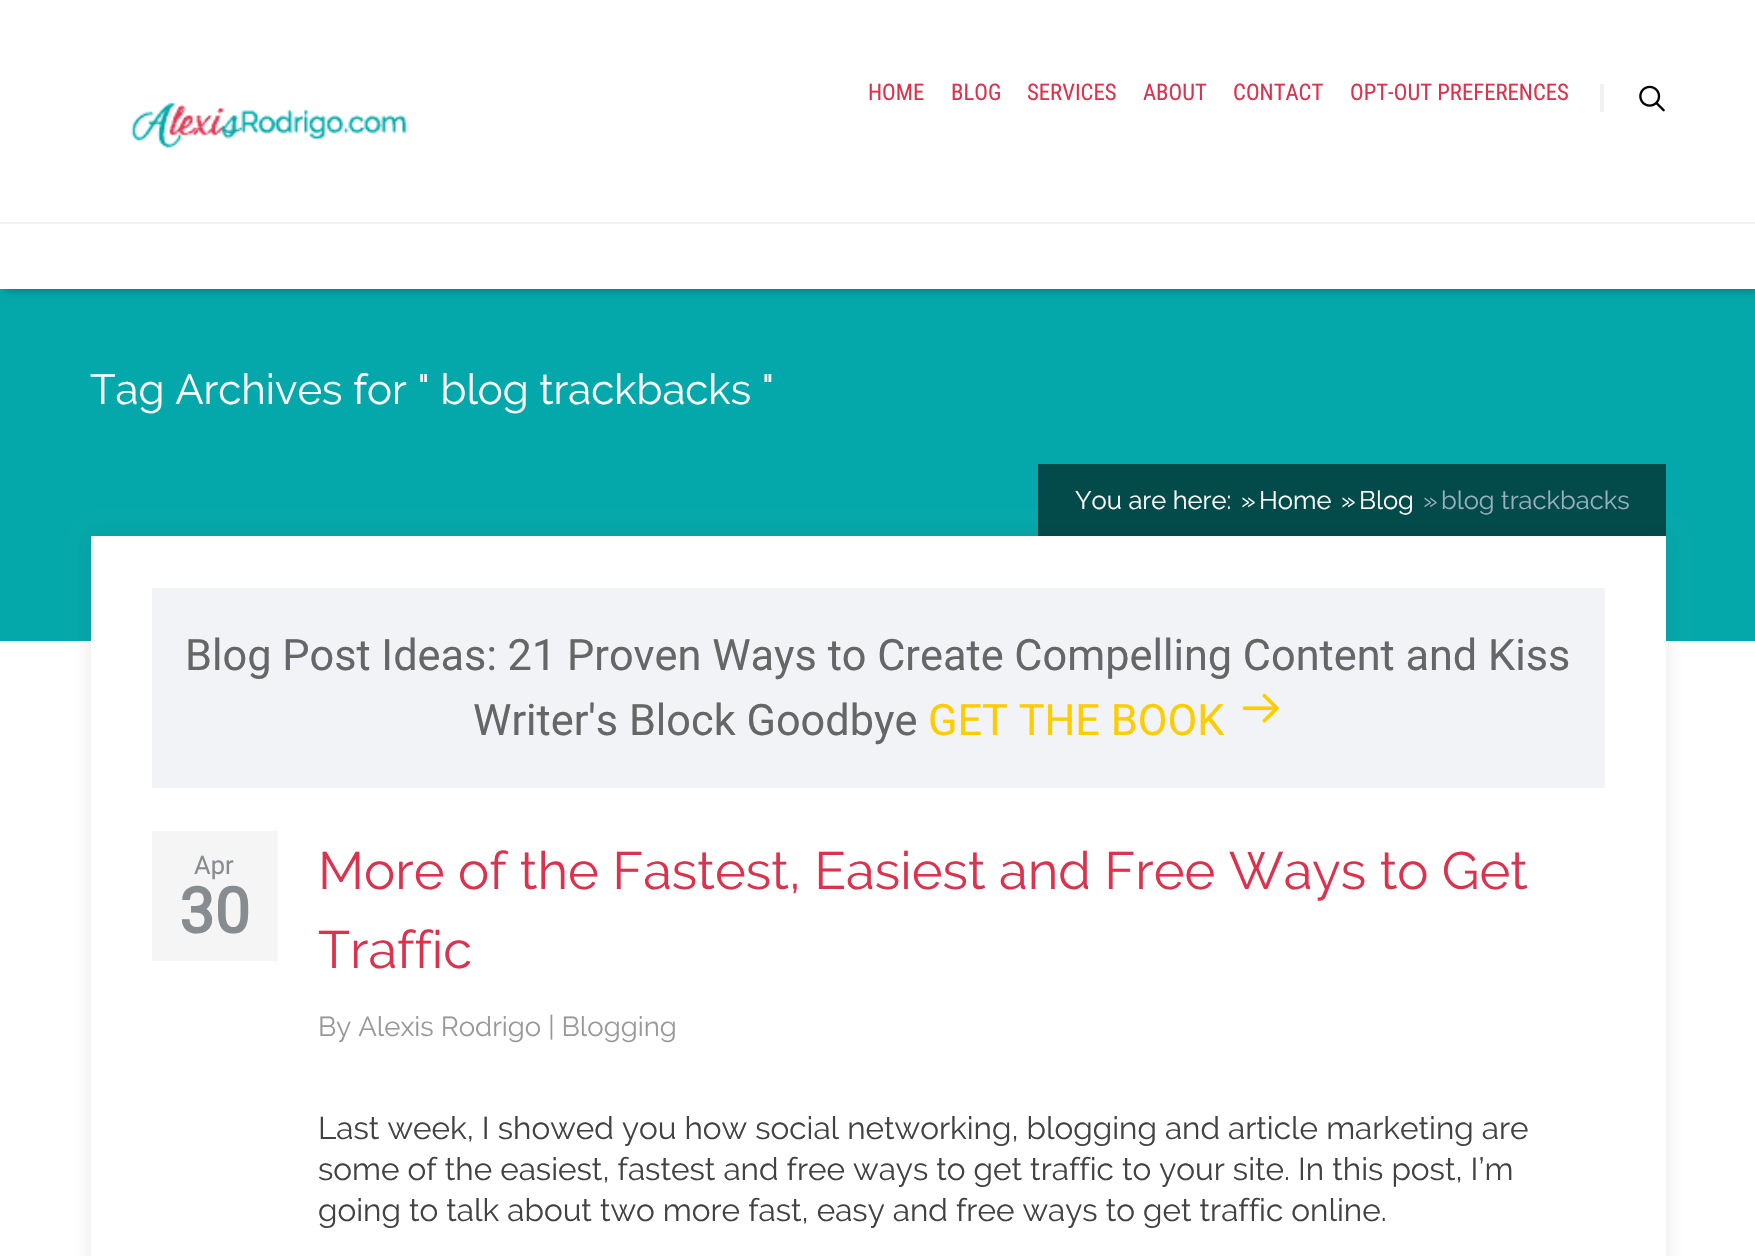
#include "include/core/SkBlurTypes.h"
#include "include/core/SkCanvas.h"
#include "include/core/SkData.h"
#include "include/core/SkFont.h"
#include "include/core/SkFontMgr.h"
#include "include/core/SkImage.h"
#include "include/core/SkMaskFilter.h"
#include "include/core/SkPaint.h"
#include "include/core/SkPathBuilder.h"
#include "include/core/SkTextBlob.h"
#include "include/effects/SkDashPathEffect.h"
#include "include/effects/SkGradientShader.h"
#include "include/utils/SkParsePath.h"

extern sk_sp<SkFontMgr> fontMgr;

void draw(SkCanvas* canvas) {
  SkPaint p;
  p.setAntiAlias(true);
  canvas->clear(SK_ColorWHITE);
  p.setColor(SkColorSetRGB(5, 168, 170));
  canvas->drawRect(SkRect::MakeLTRB(0, 289, 1755, 641), p);
  p.setColor(SkColorSetARGB(94, 0, 0, 0));
  p.setMaskFilter(SkMaskFilter::MakeBlur(kNormal_SkBlurStyle, 5));
  canvas->drawRect(SkRect::MakeLTRB(5, 0, 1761, 289), p);
  p.setMaskFilter(nullptr);
  p.setColor(SK_ColorWHITE);
  canvas->drawRect(SkRect::MakeLTRB(0, 0, 1755, 289), p);
  p.setColor(SkColorSetRGB(241, 241, 241));
  canvas->drawRect(SkRect::MakeLTRB(0, 222, 1755, 224), p);
  p.setColor(SkColorSetRGB(240, 240, 240));
  canvas->drawRect(SkRect::MakeLTRB(1600, 84, 1604, 112), p);
  canvas->drawImageRect(SkImages::DeferredFromEncodedData(SkData::MakeFromFileName("images/1.png")), SkRect::MakeLTRB(1639, 85, 1665, 112), SkSamplingOptions());
  canvas->drawImageRect(SkImages::DeferredFromEncodedData(SkData::MakeFromFileName("images/2.png")), SkRect::MakeLTRB(131, 102, 407, 148), SkSamplingOptions());
  p.setColor(SkColorSetARGB(28, 50, 50, 50));
  p.setMaskFilter(SkMaskFilter::MakeBlur(kNormal_SkBlurStyle, 9.5f));
  canvas->drawRect(SkRect::MakeLTRB(91, 536, 1666, 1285), p);
  p.setMaskFilter(nullptr);
  p.setColor(SK_ColorWHITE);
  canvas->drawRect(SkRect::MakeLTRB(91, 536, 1666, 1256), p);
  p.setColor(SkColorSetARGB(143, 0, 0, 0));
  canvas->drawRect(SkRect::MakeLTRB(1038, 464, 1666, 536), p);
  p.setColor(SkColorSetRGB(242, 243, 247));
  canvas->drawRect(SkRect::MakeLTRB(152, 588, 1605, 788), p);
  canvas->drawImageRect(SkImages::DeferredFromEncodedData(SkData::MakeFromFileName("images/3.png")), SkRect::MakeLTRB(1242, 693, 1279, 723), SkSamplingOptions());
  p.setColor(SkColorSetRGB(245, 245, 245));
  canvas->drawRect(SkRect::MakeLTRB(152, 831, 278, 961), p);
  SkFont font1(fontMgr->matchFamilyStyle("Roboto Condensed", SkFontStyle::Normal()), 22.75f);
  font1.setSubpixel(true);
  p.setColor(SkColorSetRGB(219, 50, 77));
  canvas->drawString("HOME", 868, 100, font1, p);
  canvas->drawString("BLOG", 951, 100, font1, p);
  canvas->drawString("SERVICES", 1027, 100, font1, p);
  canvas->drawString("ABOUT", 1143, 100, font1, p);
  canvas->drawString("CONTACT", 1233, 100, font1, p);
  canvas->drawString("OPT-OUT PREFERENCES", 1350, 100, font1, p);
  SkFont font2(fontMgr->matchFamilyStyle("Raleway", SkFontStyle::Normal()), 42);
  font2.setSubpixel(true);
  p.setColor(SK_ColorWHITE);
  canvas->drawString("Tag Archives for \" blog trackbacks \"", 90, 404, font2, p);
  SkFont font3(fontMgr->matchFamilyStyle("Raleway", SkFontStyle::Normal()), 25.5f);
  font3.setSubpixel(true);
  canvas->drawString("You are here:", 1075, 509, font3, p);
  canvas->drawString("»", 1241, 509, font3, p);
  canvas->drawString("Home", 1259, 509, font3, p);
  canvas->drawString("»", 1341, 509, font3, p);
  canvas->drawString("Blog", 1359, 509, font3, p);
  p.setColor(SkColorSetRGB(153, 174, 194));
  canvas->drawString("»", 1423, 509, font3, p);
  canvas->drawString("blog trackbacks", 1441, 509, font3, p);
  SkFont font4(fontMgr->matchFamilyStyle("Roboto", SkFontStyle::Normal()), 43.3f);
  font4.setSubpixel(true);
  p.setColor(SkColorSetRGB(102, 102, 102));
  canvas->drawString("Blog Post Ideas: 21 Proven Ways to Create Compelling Content and Kiss", 185, 670, font4, p);
  canvas->drawString("Writer's Block Goodbye", 473, 735, font4, p);
  p.setColor(SkColorSetRGB(255, 204, 0));
  canvas->drawString("GET THE BOOK", 928, 735, font4, p);
  SkFont font5(fontMgr->matchFamilyStyle("Roboto", SkFontStyle::Normal()), 25.5f);
  font5.setSubpixel(true);
  p.setColor(SkColorSetRGB(135, 140, 144));
  canvas->drawString("Apr", 194, 874, font5, p);
  SkFont font6(fontMgr->matchFamilyStyle("Roboto", SkFontStyle::Bold()), 63);
  font6.setSubpixel(true);
  canvas->drawString("30", 179, 933, font6, p);
  SkFont font7(fontMgr->matchFamilyStyle("Raleway", SkFontStyle::Normal()), 52.5f);
  font7.setSubpixel(true);
  p.setColor(SkColorSetRGB(219, 50, 77));
  canvas->drawString("More of the Fastest, Easiest and Free Ways to Get", 318, 889, font7, p);
  canvas->drawString("Traffic", 318, 968, font7, p);
  SkFont font8(fontMgr->matchFamilyStyle("Raleway", SkFontStyle::Normal()), 27.5f);
  font8.setSubpixel(true);
  p.setColor(SkColorSetRGB(153, 153, 153));
  canvas->drawString("By Alexis Rodrigo | Blogging", 318, 1036, font8, p);
  SkFont font9(fontMgr->matchFamilyStyle("Raleway", SkFontStyle::Normal()), 31.5f);
  font9.setSubpixel(true);
  p.setColor(SkColorSetRGB(66, 66, 66));
  canvas->drawString("Last week, I showed you how social networking, blogging and article marketing are", 318, 1139, font9, p);
  canvas->drawString("some of the easiest, fastest and free ways to get traffic to your site. In this post, I’m", 318, 1180, font9, p);
  canvas->drawString("going to talk about two more fast, easy and free ways to get traffic online.", 318, 1221, font9, p);
}
